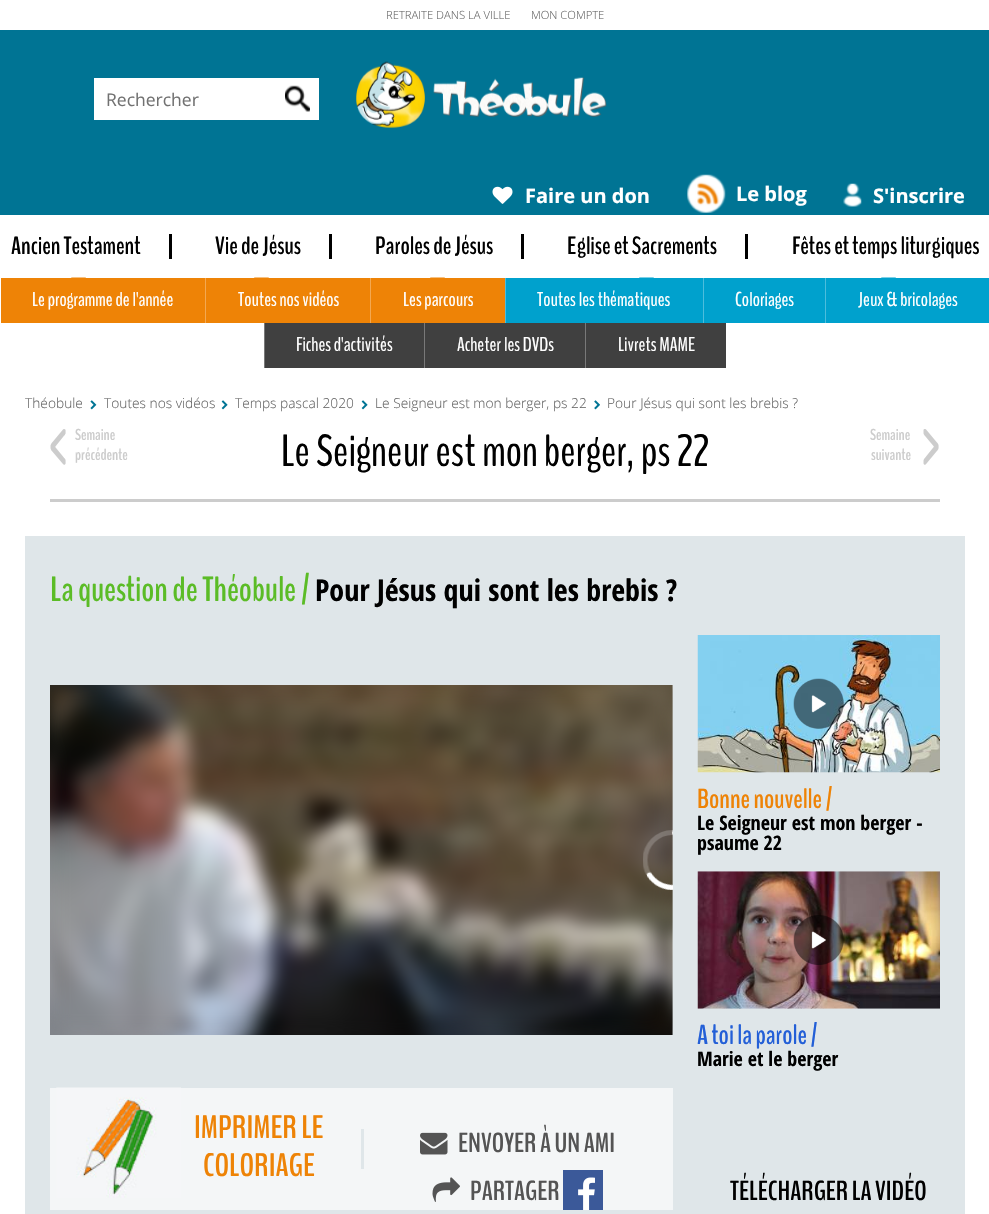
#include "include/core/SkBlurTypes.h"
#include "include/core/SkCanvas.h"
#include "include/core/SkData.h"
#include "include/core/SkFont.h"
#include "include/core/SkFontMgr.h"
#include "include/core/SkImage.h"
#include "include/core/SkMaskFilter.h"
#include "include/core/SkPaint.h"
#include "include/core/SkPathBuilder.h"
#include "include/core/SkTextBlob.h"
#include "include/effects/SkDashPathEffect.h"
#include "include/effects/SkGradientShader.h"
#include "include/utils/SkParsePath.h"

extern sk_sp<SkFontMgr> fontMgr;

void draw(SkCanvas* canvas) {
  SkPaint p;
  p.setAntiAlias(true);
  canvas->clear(SK_ColorWHITE);
  p.setColor(SkColorSetRGB(0, 116, 148));
  canvas->drawRect(SkRect::MakeLTRB(0, 30, 989, 215), p);
  p.setColor(SK_ColorWHITE);
  canvas->drawRect(SkRect::MakeLTRB(94, 78, 319, 120), p);
  canvas->drawImageRect(SkImages::DeferredFromEncodedData(SkData::MakeFromFileName("images/1.png")), SkRect::MakeLTRB(285, 85, 310, 112), SkSamplingOptions());
  canvas->drawImageRect(SkImages::DeferredFromEncodedData(SkData::MakeFromFileName("images/2.png")), SkRect::MakeLTRB(356, 61, 607, 128), SkSamplingOptions());
  canvas->drawImageRect(SkImages::DeferredFromEncodedData(SkData::MakeFromFileName("images/3.png")), SkRect::MakeLTRB(492, 186, 513, 204), SkSamplingOptions());
  canvas->drawImageRect(SkImages::DeferredFromEncodedData(SkData::MakeFromFileName("images/4.png")), SkRect::MakeLTRB(687, 174, 726, 213), SkSamplingOptions());
  canvas->drawImageRect(SkImages::DeferredFromEncodedData(SkData::MakeFromFileName("images/5.png")), SkRect::MakeLTRB(843, 183, 862, 207), SkSamplingOptions());
  p.setColor(SkColorSetRGB(238, 131, 6));
  canvas->drawRect(SkRect::MakeLTRB(1, 278, 205, 323), p);
  canvas->drawPath(SkPathBuilder().moveTo(71, 277.5f).lineTo(86, 277.5f).lineTo(79, 285).close().detach(), p);
  p.setColor(SK_ColorBLACK);
  canvas->drawRect(SkRect::MakeLTRB(169, 234, 172, 259), p);
  p.setColor(SkColorSetRGB(238, 131, 6));
  canvas->drawRect(SkRect::MakeLTRB(206, 278, 370, 323), p);
  canvas->drawPath(SkPathBuilder().moveTo(254, 277.5f).lineTo(269, 277.5f).lineTo(261, 285).close().detach(), p);
  p.setColor(SK_ColorBLACK);
  canvas->drawRect(SkRect::MakeLTRB(329, 234, 332, 259), p);
  p.setColor(SkColorSetRGB(238, 131, 6));
  canvas->drawRect(SkRect::MakeLTRB(371, 278, 505, 323), p);
  canvas->drawPath(SkPathBuilder().moveTo(430, 277.5f).lineTo(445, 277.5f).lineTo(437.5f, 285).close().detach(), p);
  p.setColor(SK_ColorBLACK);
  canvas->drawRect(SkRect::MakeLTRB(521, 234, 524, 259), p);
  p.setColor(SkColorSetRGB(0, 161, 205));
  canvas->drawRect(SkRect::MakeLTRB(506, 278, 703, 323), p);
  canvas->drawPath(SkPathBuilder().moveTo(639, 277.5f).lineTo(654, 277.5f).lineTo(646, 285).close().detach(), p);
  p.setColor(SK_ColorBLACK);
  canvas->drawRect(SkRect::MakeLTRB(745, 234, 748, 259), p);
  p.setColor(SkColorSetRGB(0, 161, 205));
  canvas->drawRect(SkRect::MakeLTRB(826, 278, 989, 323), p);
  canvas->drawPath(SkPathBuilder().moveTo(881, 277.5f).lineTo(896, 277.5f).lineTo(889, 285).close().detach(), p);
  p.setColor(SkColorSetRGB(243, 168, 81));
  canvas->drawRect(SkRect::MakeLTRB(205, 278, 206, 323), p);
  canvas->drawRect(SkRect::MakeLTRB(370, 278, 371, 323), p);
  p.setColor(SkColorSetRGB(77, 189, 220));
  canvas->drawRect(SkRect::MakeLTRB(505, 278, 506, 323), p);
  p.setColor(SkColorSetRGB(0, 161, 205));
  canvas->drawRect(SkRect::MakeLTRB(704, 278, 825, 323), p);
  p.setColor(SkColorSetRGB(77, 189, 220));
  canvas->drawRect(SkRect::MakeLTRB(703, 278, 704, 323), p);
  canvas->drawRect(SkRect::MakeLTRB(825, 278, 826, 323), p);
  p.setColor(SkColorSetRGB(64, 64, 64));
  canvas->drawRect(SkRect::MakeLTRB(265, 323, 424, 368), p);
  p.setColor(SkColorSetRGB(121, 121, 121));
  canvas->drawRect(SkRect::MakeLTRB(264, 323, 265, 368), p);
  p.setColor(SkColorSetRGB(64, 64, 64));
  canvas->drawRect(SkRect::MakeLTRB(425, 323, 585, 368), p);
  p.setColor(SkColorSetRGB(121, 121, 121));
  canvas->drawRect(SkRect::MakeLTRB(424, 323, 425, 368), p);
  p.setColor(SkColorSetRGB(64, 64, 64));
  canvas->drawRect(SkRect::MakeLTRB(586, 323, 726, 368), p);
  p.setColor(SkColorSetRGB(121, 121, 121));
  canvas->drawRect(SkRect::MakeLTRB(585, 323, 586, 368), p);
  canvas->drawImageRect(SkImages::DeferredFromEncodedData(SkData::MakeFromFileName("images/6.png")), SkRect::MakeLTRB(90, 400, 97, 410), SkSamplingOptions());
  canvas->drawImageRect(SkImages::DeferredFromEncodedData(SkData::MakeFromFileName("images/7.png")), SkRect::MakeLTRB(221, 400, 228, 410), SkSamplingOptions());
  canvas->drawImageRect(SkImages::DeferredFromEncodedData(SkData::MakeFromFileName("images/7.png")), SkRect::MakeLTRB(361, 400, 368, 410), SkSamplingOptions());
  canvas->drawImageRect(SkImages::DeferredFromEncodedData(SkData::MakeFromFileName("images/8.png")), SkRect::MakeLTRB(594, 400, 600, 410), SkSamplingOptions());
  p.setColor(SkColorSetRGB(204, 204, 204));
  canvas->drawRect(SkRect::MakeLTRB(50, 499, 940, 502), p);
  p.setColor(SkColorSetRGB(223, 230, 233));
  canvas->drawRect(SkRect::MakeLTRB(25, 536, 965, 1214), p);
  canvas->drawImageRect(SkImages::DeferredFromEncodedData(SkData::MakeFromFileName("images/9.png")), SkRect::MakeLTRB(697, 635, 940, 773), SkSamplingOptions());
  canvas->drawImageRect(SkImages::DeferredFromEncodedData(SkData::MakeFromFileName("images/10.png")), SkRect::MakeLTRB(793, 678, 844, 729), SkSamplingOptions());
  canvas->drawImageRect(SkImages::DeferredFromEncodedData(SkData::MakeFromFileName("images/11.png")), SkRect::MakeLTRB(697, 871, 940, 1009), SkSamplingOptions());
  canvas->drawImageRect(SkImages::DeferredFromEncodedData(SkData::MakeFromFileName("images/12.png")), SkRect::MakeLTRB(793, 915, 844, 965), SkSamplingOptions());
  canvas->drawImageRect(SkImages::DeferredFromEncodedData(SkData::MakeFromFileName("images/13.png")), SkRect::MakeLTRB(50, 685, 673, 1035), SkSamplingOptions());
  p.setColor(SkColorSetRGB(244, 246, 247));
  canvas->drawRect(SkRect::MakeLTRB(50, 1088, 673, 1210), p);
  canvas->drawImageRect(SkImages::DeferredFromEncodedData(SkData::MakeFromFileName("images/14.png")), SkRect::MakeLTRB(56, 1087, 181, 1198), SkSamplingOptions());
  p.setColor(SkColorSetRGB(223, 230, 233));
  canvas->drawRect(SkRect::MakeLTRB(361, 1129, 364, 1169), p);
  canvas->drawImageRect(SkImages::DeferredFromEncodedData(SkData::MakeFromFileName("images/15.png")), SkRect::MakeLTRB(420, 1132, 448, 1155), SkSamplingOptions());
  canvas->drawImageRect(SkImages::DeferredFromEncodedData(SkData::MakeFromFileName("images/16.png")), SkRect::MakeLTRB(432, 1177, 460, 1202), SkSamplingOptions());
  p.setColor(SkColorSetRGB(59, 89, 153));
  canvas->drawRect(SkRect::MakeLTRB(563, 1170, 603, 1210), p);
  canvas->drawImageRect(SkImages::DeferredFromEncodedData(SkData::MakeFromFileName("images/17.png")), SkRect::MakeLTRB(578, 1177, 595, 1210), SkSamplingOptions());
  SkFont font1(fontMgr->matchFamilyStyle("Open Sans", SkFontStyle(300, SkFontStyle::kNormal_Width, SkFontStyle::kUpright_Slant)), 11.25f);
  font1.setSubpixel(true);
  p.setColor(SkColorSetRGB(102, 102, 102));
  canvas->drawString("RETRAITE DANS LA VILLE", 386, 19, font1, p);
  canvas->drawString("MON COMPTE", 531, 19, font1, p);
  SkFont font2(fontMgr->matchFamilyStyle("Open Sans", SkFontStyle::Normal()), 17.5f);
  font2.setSubpixel(true);
  p.setColor(SkColorSetRGB(113, 113, 113));
  canvas->drawString("Rechercher", 106, 106, font2, p);
  SkFont font3(fontMgr->matchFamilyStyle("Open Sans", SkFontStyle::Bold()), 20);
  font3.setSubpixel(true);
  p.setColor(SK_ColorWHITE);
  canvas->drawString("Faire un don", 525, 203, font3, p);
  canvas->drawString("Le blog", 736, 201, font3, p);
  canvas->drawString("S'inscrire", 873, 203, font3, p);
  SkFont font4(fontMgr->matchFamilyStyle("BenchNine", SkFontStyle::Bold()), 25);
  font4.setSubpixel(true);
  p.setColor(SK_ColorBLACK);
  canvas->drawString("Ancien Testament", 11, 254, font4, p);
  canvas->drawString("Vie de Jésus", 215, 254, font4, p);
  canvas->drawString("Paroles de Jésus", 375, 254, font4, p);
  canvas->drawString("Eglise et Sacrements", 567, 254, font4, p);
  canvas->drawString("Fêtes et temps liturgiques", 792, 254, font4, p);
  SkFont font5(fontMgr->matchFamilyStyle("BenchNine", SkFontStyle::Normal()), 20);
  font5.setSubpixel(true);
  p.setColor(SK_ColorWHITE);
  canvas->drawString("Le programme de l'année", 32, 306, font5, p);
  canvas->drawString("Toutes nos vidéos", 238, 306, font5, p);
  canvas->drawString("Les parcours", 403, 306, font5, p);
  canvas->drawString("Toutes les thématiques", 537, 306, font5, p);
  canvas->drawString("Coloriages", 735, 306, font5, p);
  canvas->drawString("Jeux & bricolages", 858, 306, font5, p);
  canvas->drawString("Fiches d'activités", 296, 351, font5, p);
  canvas->drawString("Acheter les DVDs", 457, 351, font5, p);
  canvas->drawString("Livrets MAME", 618, 351, font5, p);
  SkFont font6(fontMgr->matchFamilyStyle("Open Sans", SkFontStyle(300, SkFontStyle::kNormal_Width, SkFontStyle::kUpright_Slant)), 13.75f);
  font6.setSubpixel(true);
  p.setColor(SkColorSetRGB(102, 102, 102));
  canvas->drawString("Théobule", 25, 408, font6, p);
  canvas->drawString("Toutes nos vidéos", 104, 408, font6, p);
  canvas->drawString("Temps pascal 2020", 235, 408, font6, p);
  canvas->drawString("Le Seigneur est mon berger, ps 22", 375, 408, font6, p);
  canvas->drawString("Pour Jésus qui sont les brebis ?", 607, 408, font6, p);
  SkFont font7(fontMgr->matchFamilyStyle("BenchNine", SkFontStyle::Bold()), 75);
  font7.setSubpixel(true);
  p.setColor(SkColorSetRGB(204, 204, 204));
  canvas->drawString("<", 45, 470, font7, p);
  SkFont font8(fontMgr->matchFamilyStyle("BenchNine", SkFontStyle::Bold()), 16);
  font8.setSubpixel(true);
  canvas->drawString("Semaine", 75, 440, font8, p);
  canvas->drawString("précédente", 75, 460, font8, p);
  canvas->drawString("Semaine", 870, 440, font8, p);
  canvas->drawString("suivante", 871, 460, font8, p);
  canvas->drawString(">", 918, 470, font7, p);
  SkFont font9(fontMgr->matchFamilyStyle("BenchNine", SkFontStyle::Normal()), 45);
  font9.setSubpixel(true);
  p.setColor(SK_ColorBLACK);
  canvas->drawString("Le Seigneur est mon berger, ps 22", 281, 466, font9, p);
  SkFont font10(fontMgr->matchFamilyStyle("BenchNine", SkFontStyle::Bold()), 35);
  font10.setSubpixel(true);
  p.setColor(SkColorSetRGB(91, 188, 38));
  canvas->drawString("La question de Théobule /", 50, 601, font10, p);
  SkFont font11(fontMgr->matchFamilyStyle("Open Sans Condensed", SkFontStyle::Bold()), 30);
  font11.setSubpixel(true);
  p.setColor(SK_ColorBLACK);
  canvas->drawString("Pour Jésus qui sont les brebis ?", 315, 601, font11, p);
  SkFont font12(fontMgr->matchFamilyStyle("BenchNine", SkFontStyle::Bold()), 27.5f);
  font12.setSubpixel(true);
  p.setColor(SkColorSetRGB(238, 131, 6));
  canvas->drawString("Bonne nouvelle /", 697, 808, font12, p);
  SkFont font13(fontMgr->matchFamilyStyle("Open Sans Condensed", SkFontStyle::Bold()), 20);
  font13.setSubpixel(true);
  p.setColor(SK_ColorBLACK);
  canvas->drawString("Le Seigneur est mon berger -", 697, 830, font13, p);
  canvas->drawString("psaume 22", 697, 850, font13, p);
  p.setColor(SkColorSetRGB(35, 95, 215));
  canvas->drawString("A toi la parole /", 697, 1044, font12, p);
  p.setColor(SK_ColorBLACK);
  canvas->drawString("Marie et le berger", 697, 1066, font13, p);
  SkFont font14(fontMgr->matchFamilyStyle("BenchNine", SkFontStyle::Bold()), 32.5f);
  font14.setSubpixel(true);
  p.setColor(SkColorSetRGB(238, 131, 6));
  canvas->drawString("IMPRIMER LE", 194, 1138, font14, p);
  canvas->drawString("COLORIAGE", 203, 1176, font14, p);
  p.setColor(SkColorSetRGB(84, 84, 84));
  canvas->drawString("ENVOYER À UN AMI", 458, 1152, font12, p);
  canvas->drawString("PARTAGER", 470, 1200, font12, p);
  p.setColor(SK_ColorBLACK);
  canvas->drawString("TÉLÉCHARGER LA VIDÉO", 730, 1200, font12, p);
}
